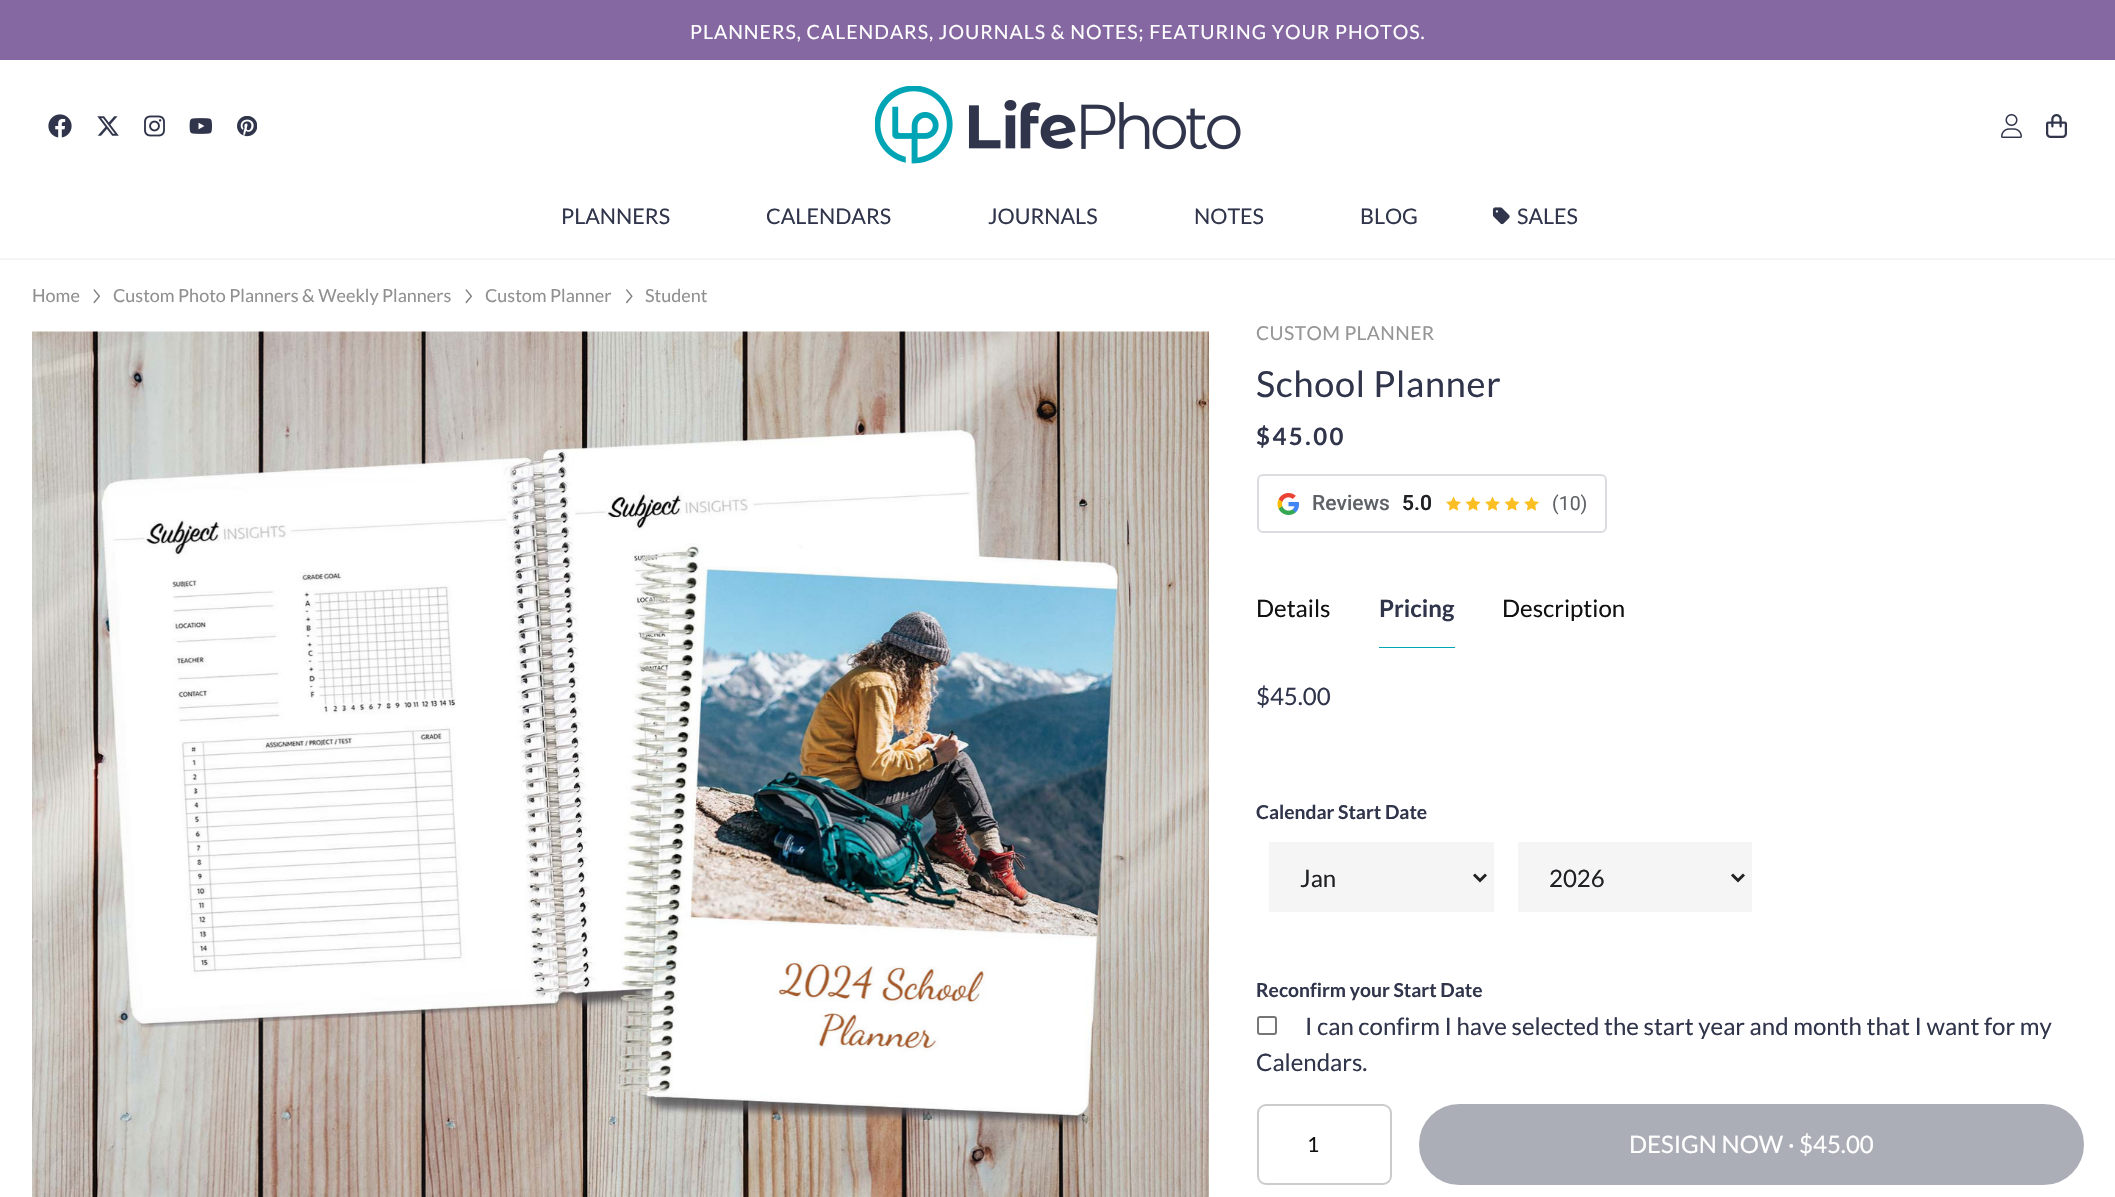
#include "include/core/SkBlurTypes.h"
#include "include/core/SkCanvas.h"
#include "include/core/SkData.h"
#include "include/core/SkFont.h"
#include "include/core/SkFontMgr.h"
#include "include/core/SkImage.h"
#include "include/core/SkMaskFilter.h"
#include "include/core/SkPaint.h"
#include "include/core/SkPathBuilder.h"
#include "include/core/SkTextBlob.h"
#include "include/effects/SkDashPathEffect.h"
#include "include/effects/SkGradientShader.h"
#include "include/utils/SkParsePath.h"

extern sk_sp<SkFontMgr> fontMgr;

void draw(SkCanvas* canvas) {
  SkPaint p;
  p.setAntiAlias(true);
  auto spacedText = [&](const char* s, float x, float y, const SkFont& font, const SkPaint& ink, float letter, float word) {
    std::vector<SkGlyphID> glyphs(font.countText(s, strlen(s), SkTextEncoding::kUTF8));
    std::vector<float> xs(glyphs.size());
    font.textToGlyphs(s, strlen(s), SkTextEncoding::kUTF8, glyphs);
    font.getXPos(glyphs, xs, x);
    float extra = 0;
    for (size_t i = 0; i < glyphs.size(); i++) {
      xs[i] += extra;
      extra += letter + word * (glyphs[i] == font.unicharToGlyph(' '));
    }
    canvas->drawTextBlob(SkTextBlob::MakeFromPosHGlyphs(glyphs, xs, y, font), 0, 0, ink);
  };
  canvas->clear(SK_ColorWHITE);
  p.setColor(SkColorSetRGB(133, 104, 162));
  canvas->drawRect(SkRect::MakeLTRB(0, 0, 2115, 60), p);
  canvas->drawImageRect(SkImages::DeferredFromEncodedData(SkData::MakeFromFileName("images/1.png")), SkRect::MakeLTRB(48, 114, 72, 138), SkSamplingOptions());
  canvas->drawImageRect(SkImages::DeferredFromEncodedData(SkData::MakeFromFileName("images/2.png")), SkRect::MakeLTRB(97, 116, 119, 136), SkSamplingOptions());
  canvas->drawImageRect(SkImages::DeferredFromEncodedData(SkData::MakeFromFileName("images/3.png")), SkRect::MakeLTRB(144, 115, 165, 137), SkSamplingOptions());
  canvas->drawImageRect(SkImages::DeferredFromEncodedData(SkData::MakeFromFileName("images/4.png")), SkRect::MakeLTRB(189, 118, 212, 134), SkSamplingOptions());
  canvas->drawImageRect(SkImages::DeferredFromEncodedData(SkData::MakeFromFileName("images/5.png")), SkRect::MakeLTRB(237, 116, 257, 137), SkSamplingOptions());
  canvas->drawImageRect(SkImages::DeferredFromEncodedData(SkData::MakeFromFileName("images/6.png")), SkRect::MakeLTRB(875, 86, 1241, 164), SkSamplingOptions());
  canvas->drawImageRect(SkImages::DeferredFromEncodedData(SkData::MakeFromFileName("images/7.png")), SkRect::MakeLTRB(2001, 114, 2022, 138), SkSamplingOptions());
  canvas->drawImageRect(SkImages::DeferredFromEncodedData(SkData::MakeFromFileName("images/8.png")), SkRect::MakeLTRB(2046, 114, 2067, 138), SkSamplingOptions());
  p.setColor(SkColorSetRGB(245, 245, 245));
  canvas->drawRect(SkRect::MakeLTRB(0, 258, 2115, 260), p);
  canvas->drawImageRect(SkImages::DeferredFromEncodedData(SkData::MakeFromFileName("images/9.png")), SkRect::MakeLTRB(1492, 207, 1510, 225), SkSamplingOptions());
  canvas->drawImageRect(SkImages::DeferredFromEncodedData(SkData::MakeFromFileName("images/10.png")), SkRect::MakeLTRB(93, 289, 100, 304), SkSamplingOptions());
  canvas->drawImageRect(SkImages::DeferredFromEncodedData(SkData::MakeFromFileName("images/10.png")), SkRect::MakeLTRB(465, 289, 472, 304), SkSamplingOptions());
  canvas->drawImageRect(SkImages::DeferredFromEncodedData(SkData::MakeFromFileName("images/11.png")), SkRect::MakeLTRB(626, 289, 633, 304), SkSamplingOptions());
  canvas->drawImageRect(SkImages::DeferredFromEncodedData(SkData::MakeFromFileName("images/12.png")), SkRect::MakeLTRB(32, 331, 1209, 1197), SkSamplingOptions());
  p.setStyle(SkPaint::kStroke_Style);
  p.setStrokeWidth(2);
  p.setColor(SkColorSetRGB(218, 220, 224));
  canvas->drawRoundRect(SkRect::MakeLTRB(1258, 475, 1606, 532), 5, 5, p);
  canvas->drawImageRect(SkImages::DeferredFromEncodedData(SkData::MakeFromFileName("images/13.png")), SkRect::MakeLTRB(1277, 493, 1300, 515), SkSamplingOptions());
  canvas->drawImageRect(SkImages::DeferredFromEncodedData(SkData::MakeFromFileName("images/14.png")), SkRect::MakeLTRB(1446, 496, 1461, 511), SkSamplingOptions());
  canvas->drawImageRect(SkImages::DeferredFromEncodedData(SkData::MakeFromFileName("images/15.png")), SkRect::MakeLTRB(1465, 496, 1481, 511), SkSamplingOptions());
  canvas->drawImageRect(SkImages::DeferredFromEncodedData(SkData::MakeFromFileName("images/14.png")), SkRect::MakeLTRB(1485, 496, 1500, 511), SkSamplingOptions());
  canvas->drawImageRect(SkImages::DeferredFromEncodedData(SkData::MakeFromFileName("images/15.png")), SkRect::MakeLTRB(1504, 496, 1520, 511), SkSamplingOptions());
  canvas->drawImageRect(SkImages::DeferredFromEncodedData(SkData::MakeFromFileName("images/14.png")), SkRect::MakeLTRB(1524, 496, 1539, 511), SkSamplingOptions());
  p.setStyle(SkPaint::kFill_Style);
  p.setColor(SkColorSetRGB(0, 165, 181));
  canvas->drawRect(SkRect::MakeLTRB(1379, 647, 1455, 648), p);
  p.setColor(SkColorSetRGB(245, 245, 245));
  canvas->drawRect(SkRect::MakeLTRB(1269, 842, 1494, 912), p);
  p.setStyle(SkPaint::kStroke_Style);
  p.setStrokeWidth(3);
  p.setColor(SkColorSetRGB(34, 34, 34));
  canvas->drawPath(SkPathBuilder().moveTo(1474, 874.5f).lineTo(1480, 880.5f).lineTo(1486, 874.5f).detach(), p);
  p.setStyle(SkPaint::kFill_Style);
  p.setColor(SkColorSetRGB(245, 245, 245));
  canvas->drawRect(SkRect::MakeLTRB(1518, 842, 1752, 912), p);
  p.setStyle(SkPaint::kStroke_Style);
  p.setColor(SkColorSetRGB(34, 34, 34));
  canvas->drawPath(SkPathBuilder().moveTo(1732, 874.5f).lineTo(1738, 880.5f).lineTo(1744, 874.5f).detach(), p);
  p.setStrokeWidth(2);
  p.setColor(SkColorSetRGB(118, 118, 118));
  canvas->drawRoundRect(SkRect::MakeLTRB(1258, 1017, 1276, 1034), 2, 2, p);
  p.setColor(SkColorSetRGB(204, 204, 204));
  canvas->drawRoundRect(SkRect::MakeLTRB(1258, 1105, 1391, 1184), 8, 8, p);
  p.setStyle(SkPaint::kFill_Style);
  p.setColor(SkColorSetRGB(172, 174, 183));
  canvas->drawRoundRect(SkRect::MakeLTRB(1420, 1105, 2083, 1184), 39.5f, 39.5f, p);
  p.setStyle(SkPaint::kStroke_Style);
  canvas->drawRoundRect(SkRect::MakeLTRB(1420, 1105, 2083, 1184), 39.5f, 39.5f, p);
  SkFont font1(fontMgr->matchFamilyStyle("Lato", SkFontStyle::Normal()), 19.5f);
  font1.setSubpixel(true);
  p.setStyle(SkPaint::kFill_Style);
  p.setColor(SK_ColorWHITE);
  spacedText("PLANNERS, CALENDARS, JOURNALS & NOTES; FEATURING YOUR PHOTOS.", 690, 39, font1, p, 0.98f, 0);
  SkFont font2(fontMgr->matchFamilyStyle("Lato", SkFontStyle::Normal()), 21.5f);
  font2.setSubpixel(true);
  p.setColor(SkColorSetRGB(48, 53, 75));
  canvas->drawString("PLANNERS", 561, 224, font2, p);
  canvas->drawString("CALENDARS", 766, 224, font2, p);
  canvas->drawString("JOURNALS", 988, 224, font2, p);
  canvas->drawString("NOTES", 1194, 224, font2, p);
  canvas->drawString("BLOG", 1360, 224, font2, p);
  canvas->drawString("SALES", 1517, 224, font2, p);
  SkFont font3(fontMgr->matchFamilyStyle("Lato", SkFontStyle::Normal()), 18);
  font3.setSubpixel(true);
  p.setColor(SkColorSetRGB(144, 144, 144));
  canvas->drawString("Home", 32, 302, font3, p);
  canvas->drawString("Custom Photo Planners & Weekly Planners", 113, 302, font3, p);
  canvas->drawString("Custom Planner", 485, 302, font3, p);
  canvas->drawString("Student", 645, 302, font3, p);
  SkFont font4(fontMgr->matchFamilyStyle("Lato", SkFontStyle::Normal()), 19.25f);
  font4.setSubpixel(true);
  p.setColor(SkColorSetRGB(150, 150, 150));
  spacedText("CUSTOM PLANNER", 1256, 340, font4, p, 0.4f, 0);
  SkFont font5(fontMgr->matchFamilyStyle("Lato", SkFontStyle::Normal()), 36);
  font5.setSubpixel(true);
  p.setColor(SkColorSetRGB(48, 53, 75));
  spacedText("School Planner", 1256, 397, font5, p, 0.75f, 0);
  SkFont font6(fontMgr->matchFamilyStyle("Lato", SkFontStyle::Bold()), 24);
  font6.setSubpixel(true);
  spacedText("$45.00", 1256, 445, font6, p, 2.5f, 0);
  SkFont font7(fontMgr->matchFamilyStyle("Roboto", SkFontStyle(500, SkFontStyle::kNormal_Width, SkFontStyle::kUpright_Slant)), 21);
  font7.setSubpixel(true);
  p.setColor(SkColorSetRGB(95, 99, 104));
  canvas->drawString("Reviews", 1312, 510, font7, p);
  SkFont font8(fontMgr->matchFamilyStyle("Roboto", SkFontStyle(600, SkFontStyle::kNormal_Width, SkFontStyle::kUpright_Slant)), 21);
  font8.setSubpixel(true);
  p.setColor(SkColorSetRGB(32, 33, 36));
  canvas->drawString("5.0", 1402, 510, font8, p);
  SkFont font9(fontMgr->matchFamilyStyle("Roboto", SkFontStyle::Normal()), 19.5f);
  font9.setSubpixel(true);
  p.setColor(SkColorSetRGB(95, 99, 104));
  canvas->drawString("(10)", 1552, 510, font9, p);
  SkFont font10(fontMgr->matchFamilyStyle("Lato", SkFontStyle::Normal()), 24);
  font10.setSubpixel(true);
  p.setColor(SkColorSetRGB(17, 17, 17));
  canvas->drawString("Details", 1256, 617, font10, p);
  p.setColor(SkColorSetRGB(48, 53, 75));
  canvas->drawString("Pricing", 1379, 617, font6, p);
  p.setColor(SkColorSetRGB(17, 17, 17));
  canvas->drawString("Description", 1502, 617, font10, p);
  p.setColor(SkColorSetRGB(48, 53, 75));
  canvas->drawString("$45.00", 1256, 705, font10, p);
  SkFont font11(fontMgr->matchFamilyStyle("Lato", SkFontStyle::Bold()), 19.25f);
  font11.setSubpixel(true);
  canvas->drawString("Calendar Start Date", 1256, 819, font11, p);
  p.setColor(SkColorSetRGB(32, 33, 36));
  canvas->drawString("Jan", 1300, 887, font10, p);
  canvas->drawString("2026", 1549, 887, font10, p);
  p.setColor(SkColorSetRGB(48, 53, 75));
  canvas->drawString("Reconfirm your Start Date", 1256, 997, font11, p);
  canvas->drawString("I can confirm I have selected the start year and month that I want for my", 1305, 1035, font10, p);
  canvas->drawString("Calendars.", 1256, 1071, font10, p);
  SkFont font12(fontMgr->matchFamilyStyle("Lato", SkFontStyle::Normal()), 21);
  font12.setSubpixel(true);
  p.setColor(SkColorSetRGB(17, 17, 17));
  canvas->drawString("1", 1307, 1152, font12, p);
  p.setColor(SK_ColorWHITE);
  canvas->drawString("DESIGN NOW · $45.00", 1629, 1153, font10, p);
}
